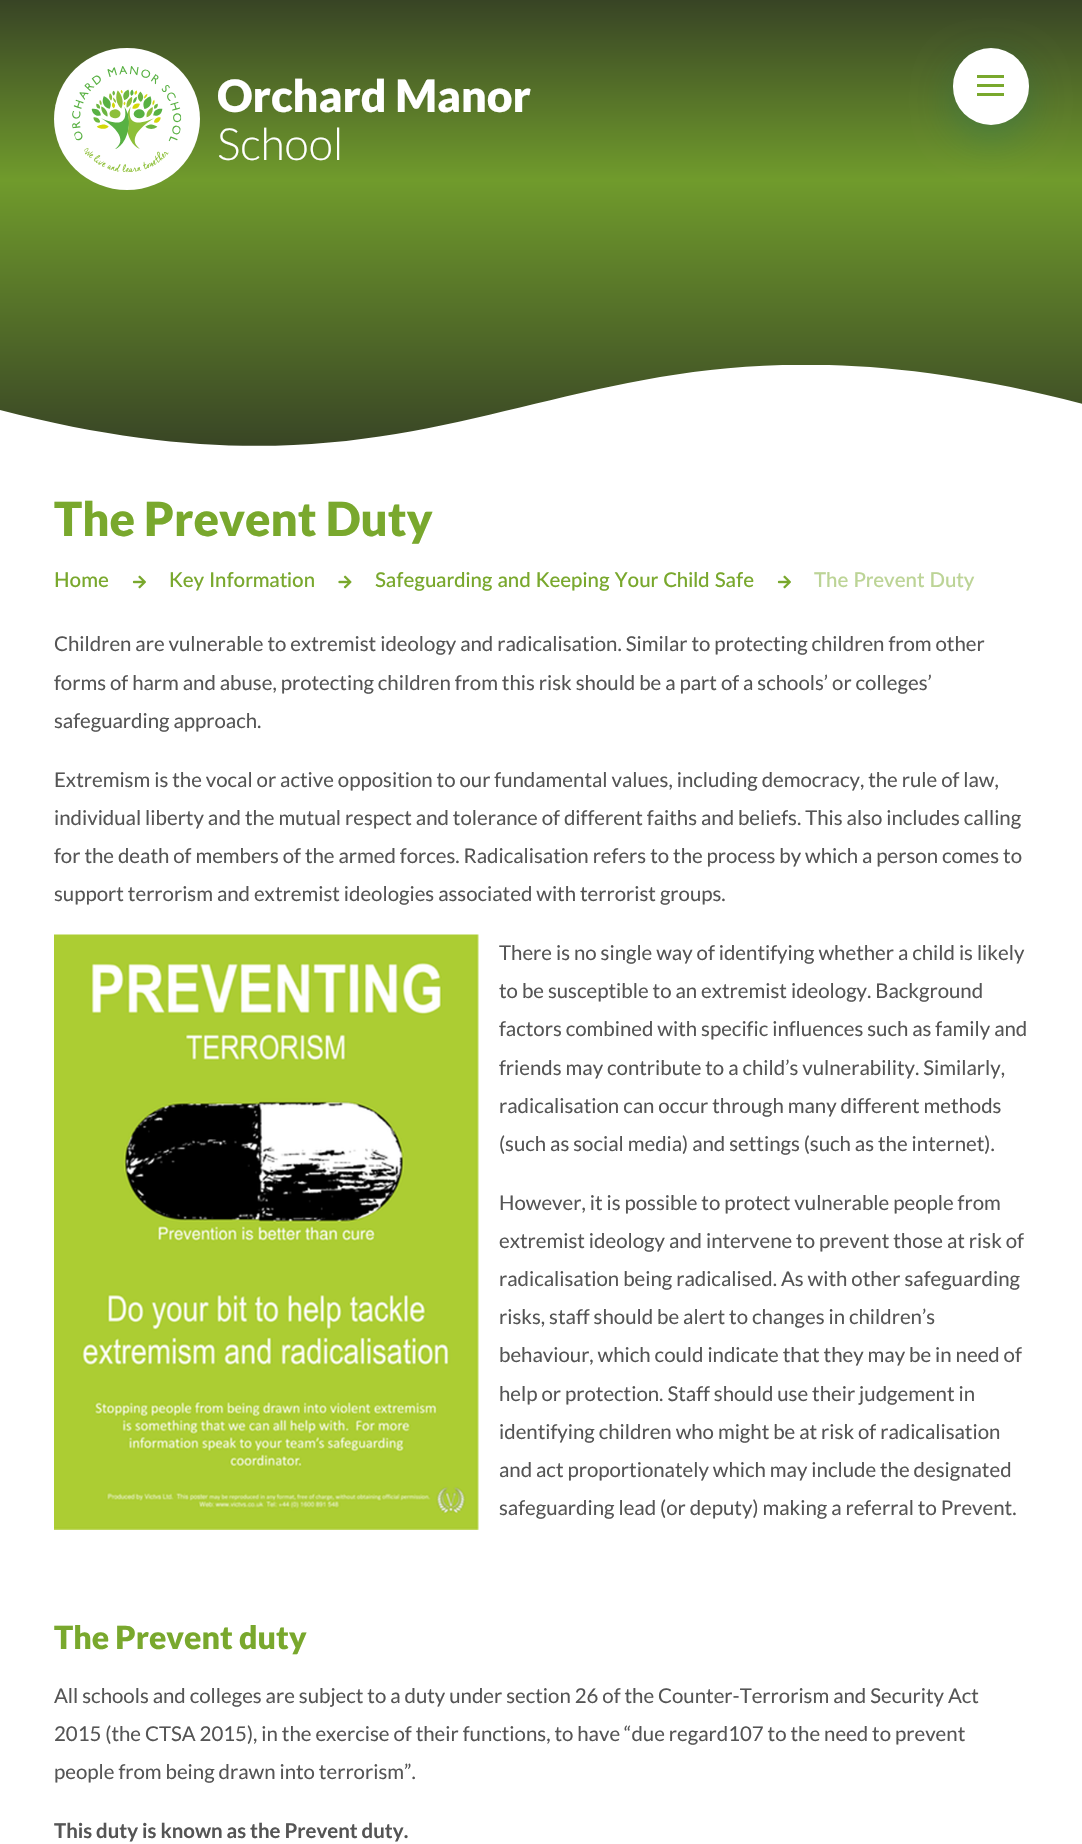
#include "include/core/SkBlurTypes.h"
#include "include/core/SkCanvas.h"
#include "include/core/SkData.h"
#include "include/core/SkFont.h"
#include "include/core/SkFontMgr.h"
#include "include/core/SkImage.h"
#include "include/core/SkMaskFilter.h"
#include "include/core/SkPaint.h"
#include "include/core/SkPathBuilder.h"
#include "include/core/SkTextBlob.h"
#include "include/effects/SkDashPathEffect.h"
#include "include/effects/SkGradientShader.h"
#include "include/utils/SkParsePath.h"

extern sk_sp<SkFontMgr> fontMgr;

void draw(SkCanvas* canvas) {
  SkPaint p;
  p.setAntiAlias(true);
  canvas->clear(SK_ColorWHITE);
  {
    const SkColor colors[] = {SkColorSetRGB(56, 68, 37), SkColorSetRGB(112, 155, 44), SkColorSetRGB(56, 68, 37)};
    const float stops[] = {0, 0.4f, 1};
    const SkPoint ends[] = {{542, 0}, {542, 450}};
    p.setShader(SkGradientShader::MakeLinear(ends, colors, stops, 3, SkTileMode::kClamp));
    p.setAlpha(255);
  }
  canvas->drawRect(SkRect::MakeLTRB(0, 0, 1082, 446), p);
  canvas->save();
  canvas->clipRect(SkRect::MakeLTRB(0, 365, 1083, 452));
  p.setShader(nullptr);
  p.setColor(SK_ColorWHITE);
  canvas->drawPath(SkPathBuilder().moveTo(0, 410).cubicTo(498, 539, 562, 268, 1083, 404).lineTo(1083, 452).lineTo(0, 452).close().detach(), p);
  canvas->restore();
  canvas->drawOval(SkRect::MakeLTRB(54, 48, 200, 190), p);
  canvas->drawImageRect(SkImages::DeferredFromEncodedData(SkData::MakeFromFileName("images/1.png")), SkRect::MakeLTRB(72, 66, 182, 173), SkSamplingOptions());
  p.setColor(SkColorSetARGB(77, 17, 110, 107));
  p.setMaskFilter(SkMaskFilter::MakeBlur(kNormal_SkBlurStyle, 19));
  canvas->drawRoundRect(SkRect::MakeLTRB(953, 62, 1029, 138), 38, 38, p);
  p.setMaskFilter(nullptr);
  p.setColor(SK_ColorWHITE);
  canvas->drawRoundRect(SkRect::MakeLTRB(953, 48, 1029, 125), 38, 38, p);
  p.setColor(SkColorSetRGB(121, 168, 45));
  canvas->drawRect(SkRect::MakeLTRB(977, 75, 1004, 78), p);
  canvas->drawRect(SkRect::MakeLTRB(977, 84, 1004, 87), p);
  canvas->drawRect(SkRect::MakeLTRB(977, 93, 1004, 96), p);
  canvas->drawImageRect(SkImages::DeferredFromEncodedData(SkData::MakeFromFileName("images/2.png")), SkRect::MakeLTRB(132, 575, 146, 589), SkSamplingOptions());
  canvas->drawImageRect(SkImages::DeferredFromEncodedData(SkData::MakeFromFileName("images/3.png")), SkRect::MakeLTRB(338, 575, 352, 589), SkSamplingOptions());
  canvas->drawImageRect(SkImages::DeferredFromEncodedData(SkData::MakeFromFileName("images/2.png")), SkRect::MakeLTRB(777, 575, 791, 589), SkSamplingOptions());
  canvas->drawImageRect(SkImages::DeferredFromEncodedData(SkData::MakeFromFileName("images/4.png")), SkRect::MakeLTRB(54, 934, 479, 1530), SkSamplingOptions());
  SkFont font1(fontMgr->matchFamilyStyle("Lato", SkFontStyle(900, SkFontStyle::kNormal_Width, SkFontStyle::kUpright_Slant)), 44.5f);
  font1.setSubpixel(true);
  p.setColor(SK_ColorWHITE);
  canvas->drawString("Orchard Manor", 217, 112, font1, p);
  SkFont font2(fontMgr->matchFamilyStyle("Lato", SkFontStyle(300, SkFontStyle::kNormal_Width, SkFontStyle::kUpright_Slant)), 44.5f);
  font2.setSubpixel(true);
  canvas->drawString("School", 217, 160, font2, p);
  SkFont font3(fontMgr->matchFamilyStyle("Lato", SkFontStyle(900, SkFontStyle::kNormal_Width, SkFontStyle::kUpright_Slant)), 47);
  font3.setSubpixel(true);
  p.setColor(SkColorSetRGB(121, 168, 45));
  canvas->drawString("The Prevent Duty", 54, 536, font3, p);
  SkFont font4(fontMgr->matchFamilyStyle("Lato", SkFontStyle(500, SkFontStyle::kNormal_Width, SkFontStyle::kUpright_Slant)), 20.4f);
  font4.setSubpixel(true);
  canvas->drawString("Home", 54, 587, font4, p);
  canvas->drawString("Key Information", 169, 587, font4, p);
  canvas->drawString("Safeguarding and Keeping Your Child Safe", 375, 587, font4, p);
  p.setColor(SkColorSetRGB(188, 212, 150));
  canvas->drawString("The Prevent Duty", 814, 587, font4, p);
  SkFont font5(fontMgr->matchFamilyStyle("Lato", SkFontStyle::Normal()), 20.4f);
  font5.setSubpixel(true);
  p.setColor(SkColorSetRGB(85, 85, 85));
  canvas->drawString("Children are vulnerable to extremist ideology and radicalisation. Similar to protecting children from other", 54, 651, font5, p);
  canvas->drawString("forms of harm and abuse, protecting children from this risk should be a part of a schools’ or colleges’", 54, 690, font5, p);
  canvas->drawString("safeguarding approach.", 54, 728, font5, p);
  canvas->drawString("Extremism is the vocal or active opposition to our fundamental values, including democracy, the rule of law,", 54, 787, font5, p);
  canvas->drawString("individual liberty and the mutual respect and tolerance of different faiths and beliefs. This also includes calling", 54, 825, font5, p);
  canvas->drawString("for the death of members of the armed forces. Radicalisation refers to the process by which a person comes to", 54, 863, font5, p);
  canvas->drawString("support terrorism and extremist ideologies associated with terrorist groups.", 54, 901, font5, p);
  canvas->drawString("There is no single way of identifying whether a child is likely", 499, 960, font5, p);
  canvas->drawString("to be susceptible to an extremist ideology. Background", 499, 998, font5, p);
  canvas->drawString("factors combined with specific influences such as family and", 499, 1036, font5, p);
  canvas->drawString("friends may contribute to a child’s vulnerability. Similarly,", 499, 1075, font5, p);
  canvas->drawString("radicalisation can occur through many different methods", 499, 1113, font5, p);
  canvas->drawString("(such as social media) and settings (such as the internet).", 499, 1151, font5, p);
  canvas->drawString("However, it is possible to protect vulnerable people from", 499, 1210, font5, p);
  canvas->drawString("extremist ideology and intervene to prevent those at risk of", 499, 1248, font5, p);
  canvas->drawString("radicalisation being radicalised. As with other safeguarding", 499, 1286, font5, p);
  canvas->drawString("risks, staff should be alert to changes in children’s", 499, 1324, font5, p);
  canvas->drawString("behaviour, which could indicate that they may be in need of", 499, 1362, font5, p);
  canvas->drawString("help or protection. Staff should use their judgement in", 499, 1401, font5, p);
  canvas->drawString("identifying children who might be at risk of radicalisation", 499, 1439, font5, p);
  canvas->drawString("and act proportionately which may include the designated", 499, 1477, font5, p);
  canvas->drawString("safeguarding lead (or deputy) making a referral to Prevent.", 499, 1515, font5, p);
  SkFont font6(fontMgr->matchFamilyStyle("Lato", SkFontStyle(900, SkFontStyle::kNormal_Width, SkFontStyle::kUpright_Slant)), 32);
  font6.setSubpixel(true);
  p.setColor(SkColorSetRGB(121, 168, 45));
  canvas->drawString("The Prevent duty", 54, 1649, font6, p);
  p.setColor(SkColorSetRGB(85, 85, 85));
  canvas->drawString("All schools and colleges are subject to a duty under section 26 of the Counter-Terrorism and Security Act", 54, 1703, font5, p);
  canvas->drawString("2015 (the CTSA 2015), in the exercise of their functions, to have “due regard107 to the need to prevent", 54, 1741, font5, p);
  canvas->drawString("people from being drawn into terrorism”.", 54, 1779, font5, p);
  SkFont font7(fontMgr->matchFamilyStyle("Lato", SkFontStyle::Bold()), 20.4f);
  font7.setSubpixel(true);
  canvas->drawString("This duty is known as the Prevent duty.", 54, 1838, font7, p);
}
